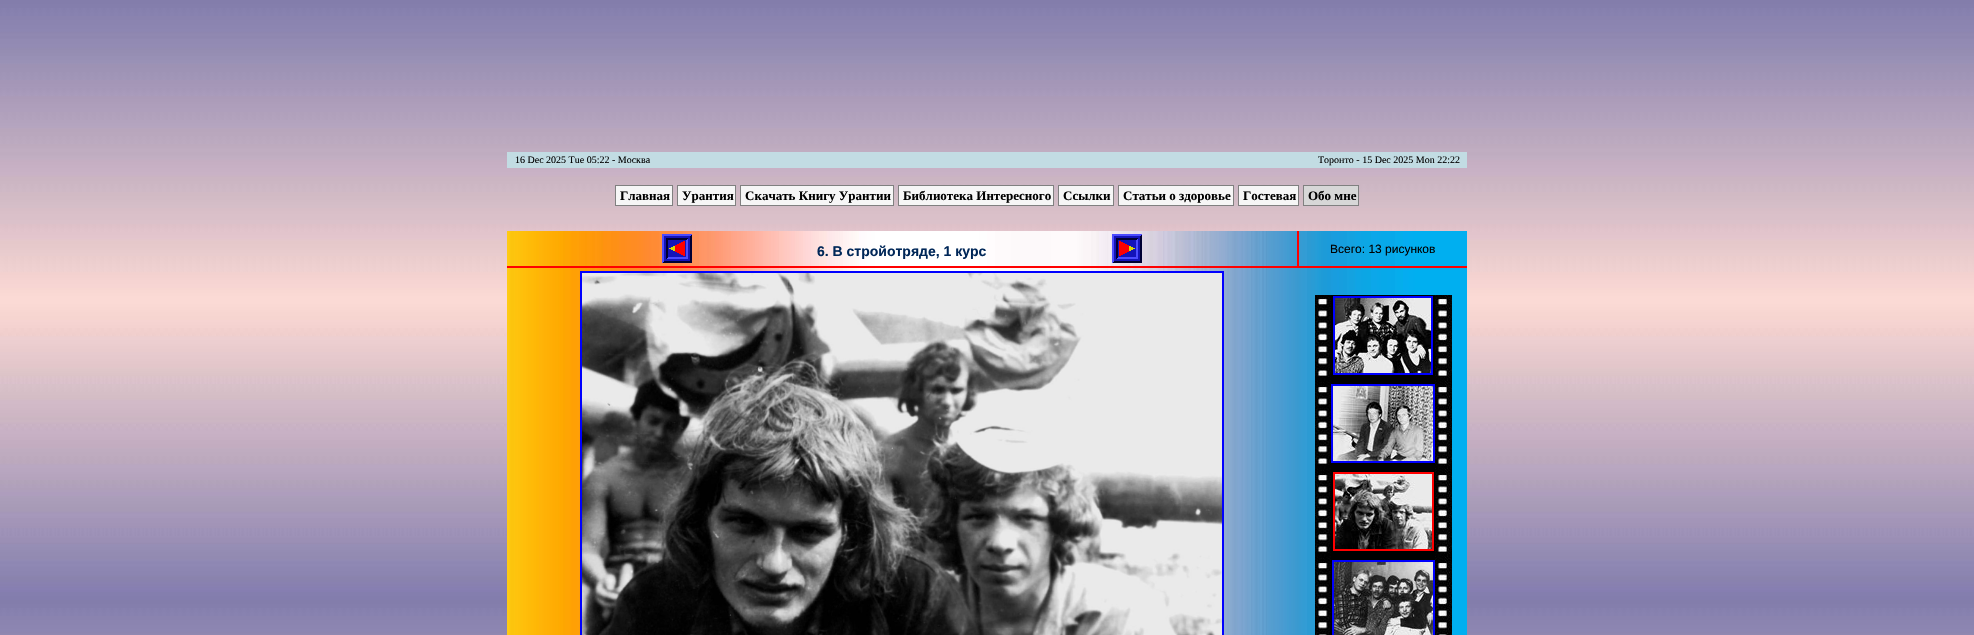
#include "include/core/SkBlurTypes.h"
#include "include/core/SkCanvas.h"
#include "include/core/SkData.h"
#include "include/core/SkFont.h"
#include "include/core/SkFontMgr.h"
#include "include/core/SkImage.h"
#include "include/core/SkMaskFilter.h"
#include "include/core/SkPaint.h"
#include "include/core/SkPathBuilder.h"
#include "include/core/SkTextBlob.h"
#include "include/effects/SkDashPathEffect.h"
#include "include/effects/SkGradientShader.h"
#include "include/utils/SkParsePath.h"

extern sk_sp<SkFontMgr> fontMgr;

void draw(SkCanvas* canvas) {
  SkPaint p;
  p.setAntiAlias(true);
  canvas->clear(SK_ColorWHITE);
  canvas->drawImageRect(SkImages::DeferredFromEncodedData(SkData::MakeFromFileName("images/1.png")), SkRect::MakeLTRB(0, 0, 1974, 635), SkSamplingOptions());
  p.setColor(SkColorSetRGB(194, 220, 227));
  canvas->drawRect(SkRect::MakeLTRB(507, 152, 1467, 168), p);
  p.setColor(SkColorSetRGB(246, 246, 246));
  canvas->drawRect(SkRect::MakeLTRB(615.5f, 185.5f, 672.5f, 205.5f), p);
  p.setStyle(SkPaint::kStroke_Style);
  p.setStrokeWidth(1);
  p.setColor(SkColorSetRGB(128, 128, 128));
  canvas->drawRect(SkRect::MakeLTRB(615.5f, 185.5f, 672.5f, 205.5f), p);
  p.setStyle(SkPaint::kFill_Style);
  p.setColor(SkColorSetRGB(246, 246, 246));
  canvas->drawRect(SkRect::MakeLTRB(677.5f, 185.5f, 735.5f, 205.5f), p);
  p.setStyle(SkPaint::kStroke_Style);
  p.setColor(SkColorSetRGB(128, 128, 128));
  canvas->drawRect(SkRect::MakeLTRB(677.5f, 185.5f, 735.5f, 205.5f), p);
  p.setStyle(SkPaint::kFill_Style);
  p.setColor(SkColorSetRGB(246, 246, 246));
  canvas->drawRect(SkRect::MakeLTRB(740.5f, 185.5f, 893.5f, 205.5f), p);
  p.setStyle(SkPaint::kStroke_Style);
  p.setColor(SkColorSetRGB(128, 128, 128));
  canvas->drawRect(SkRect::MakeLTRB(740.5f, 185.5f, 893.5f, 205.5f), p);
  p.setStyle(SkPaint::kFill_Style);
  p.setColor(SkColorSetRGB(246, 246, 246));
  canvas->drawRect(SkRect::MakeLTRB(898.5f, 185.5f, 1053.5f, 205.5f), p);
  p.setStyle(SkPaint::kStroke_Style);
  p.setColor(SkColorSetRGB(128, 128, 128));
  canvas->drawRect(SkRect::MakeLTRB(898.5f, 185.5f, 1053.5f, 205.5f), p);
  p.setStyle(SkPaint::kFill_Style);
  p.setColor(SkColorSetRGB(246, 246, 246));
  canvas->drawRect(SkRect::MakeLTRB(1058.5f, 185.5f, 1113.5f, 205.5f), p);
  p.setStyle(SkPaint::kStroke_Style);
  p.setColor(SkColorSetRGB(128, 128, 128));
  canvas->drawRect(SkRect::MakeLTRB(1058.5f, 185.5f, 1113.5f, 205.5f), p);
  p.setStyle(SkPaint::kFill_Style);
  p.setColor(SkColorSetRGB(246, 246, 246));
  canvas->drawRect(SkRect::MakeLTRB(1118.5f, 185.5f, 1233.5f, 205.5f), p);
  p.setStyle(SkPaint::kStroke_Style);
  p.setColor(SkColorSetRGB(128, 128, 128));
  canvas->drawRect(SkRect::MakeLTRB(1118.5f, 185.5f, 1233.5f, 205.5f), p);
  p.setStyle(SkPaint::kFill_Style);
  p.setColor(SkColorSetRGB(246, 246, 246));
  canvas->drawRect(SkRect::MakeLTRB(1238.5f, 185.5f, 1298.5f, 205.5f), p);
  p.setStyle(SkPaint::kStroke_Style);
  p.setColor(SkColorSetRGB(128, 128, 128));
  canvas->drawRect(SkRect::MakeLTRB(1238.5f, 185.5f, 1298.5f, 205.5f), p);
  p.setStyle(SkPaint::kFill_Style);
  p.setColor(SkColorSetRGB(215, 215, 215));
  canvas->drawRect(SkRect::MakeLTRB(1303.5f, 185.5f, 1358.5f, 205.5f), p);
  p.setStyle(SkPaint::kStroke_Style);
  p.setColor(SkColorSetRGB(128, 128, 128));
  canvas->drawRect(SkRect::MakeLTRB(1303.5f, 185.5f, 1358.5f, 205.5f), p);
  canvas->drawImageRect(SkImages::DeferredFromEncodedData(SkData::MakeFromFileName("images/2.png")), SkRect::MakeLTRB(507, 231, 1467, 635), SkSamplingOptions());
  p.setStyle(SkPaint::kFill_Style);
  p.setColor(SkColorSetRGB(255, 0, 0));
  canvas->drawRect(SkRect::MakeLTRB(1297, 231, 1299, 268), p);
  canvas->drawRect(SkRect::MakeLTRB(507, 266, 1467, 268), p);
  canvas->drawImageRect(SkImages::DeferredFromEncodedData(SkData::MakeFromFileName("images/3.png")), SkRect::MakeLTRB(662, 234, 692, 263), SkSamplingOptions());
  canvas->drawImageRect(SkImages::DeferredFromEncodedData(SkData::MakeFromFileName("images/4.png")), SkRect::MakeLTRB(1112, 234, 1142, 263), SkSamplingOptions());
  p.setStyle(SkPaint::kStroke_Style);
  p.setStrokeWidth(2);
  p.setColor(SkColorSetRGB(0, 0, 255));
  canvas->drawRect(SkRect::MakeLTRB(581, 272, 1223, 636), p);
  canvas->drawImageRect(SkImages::DeferredFromEncodedData(SkData::MakeFromFileName("images/5.png")), SkRect::MakeLTRB(582, 273, 1222, 635), SkSamplingOptions());
  canvas->drawImageRect(SkImages::DeferredFromEncodedData(SkData::MakeFromFileName("images/6.png")), SkRect::MakeLTRB(1315, 295, 1452, 383), SkSamplingOptions());
  canvas->drawRect(SkRect::MakeLTRB(1334, 297, 1432, 374), p);
  canvas->drawImageRect(SkImages::DeferredFromEncodedData(SkData::MakeFromFileName("images/7.png")), SkRect::MakeLTRB(1335, 298, 1431, 373), SkSamplingOptions());
  canvas->drawImageRect(SkImages::DeferredFromEncodedData(SkData::MakeFromFileName("images/6.png")), SkRect::MakeLTRB(1315, 383, 1452, 471), SkSamplingOptions());
  canvas->drawRect(SkRect::MakeLTRB(1332, 385, 1434, 462), p);
  canvas->drawImageRect(SkImages::DeferredFromEncodedData(SkData::MakeFromFileName("images/8.png")), SkRect::MakeLTRB(1333, 386, 1433, 461), SkSamplingOptions());
  canvas->drawImageRect(SkImages::DeferredFromEncodedData(SkData::MakeFromFileName("images/6.png")), SkRect::MakeLTRB(1315, 471, 1452, 559), SkSamplingOptions());
  p.setColor(SkColorSetRGB(255, 0, 0));
  canvas->drawRect(SkRect::MakeLTRB(1334, 473, 1433, 550), p);
  canvas->drawImageRect(SkImages::DeferredFromEncodedData(SkData::MakeFromFileName("images/9.png")), SkRect::MakeLTRB(1335, 474, 1432, 549), SkSamplingOptions());
  canvas->drawImageRect(SkImages::DeferredFromEncodedData(SkData::MakeFromFileName("images/10.png")), SkRect::MakeLTRB(1315, 559, 1452, 635), SkSamplingOptions());
  p.setColor(SkColorSetRGB(0, 0, 255));
  canvas->drawRect(SkRect::MakeLTRB(1333, 561, 1434, 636), p);
  canvas->drawImageRect(SkImages::DeferredFromEncodedData(SkData::MakeFromFileName("images/11.png")), SkRect::MakeLTRB(1334, 562, 1433, 635), SkSamplingOptions());
  SkFont font1(fontMgr->matchFamilyStyle("Liberation Serif", SkFontStyle::Normal()), 10);
  font1.setSubpixel(true);
  p.setStyle(SkPaint::kFill_Style);
  p.setColor(SK_ColorBLACK);
  canvas->drawString("16 Dec 2025 Tue 05:22 - Москва", 515, 163, font1, p);
  canvas->drawString("Торонто - 15 Dec 2025 Mon 22:22", 1318, 163, font1, p);
  SkFont font2(fontMgr->matchFamilyStyle("Liberation Serif", SkFontStyle::Bold()), 13);
  font2.setSubpixel(true);
  canvas->drawString("Главная", 620, 200, font2, p);
  canvas->drawString("Урантия", 682, 200, font2, p);
  canvas->drawString("Скачать Книгу Урантии", 745, 200, font2, p);
  canvas->drawString("Библиотека Интересного", 903, 200, font2, p);
  canvas->drawString("Ссылки", 1063, 200, font2, p);
  canvas->drawString("Статьи о здоровье", 1123, 200, font2, p);
  canvas->drawString("Гостевая", 1243, 200, font2, p);
  canvas->drawString("Обо мне", 1308, 200, font2, p);
  SkFont font3(fontMgr->matchFamilyStyle("Liberation Sans", SkFontStyle::Bold()), 14);
  font3.setSubpixel(true);
  p.setColor(SkColorSetRGB(0, 39, 88));
  canvas->drawString("6. В стройотряде, 1 курс", 817, 256, font3, p);
  SkFont font4(fontMgr->matchFamilyStyle("Liberation Sans", SkFontStyle::Normal()), 12);
  font4.setSubpixel(true);
  p.setColor(SK_ColorBLACK);
  canvas->drawString("Всего: 13 рисунков", 1330, 253, font4, p);
}
